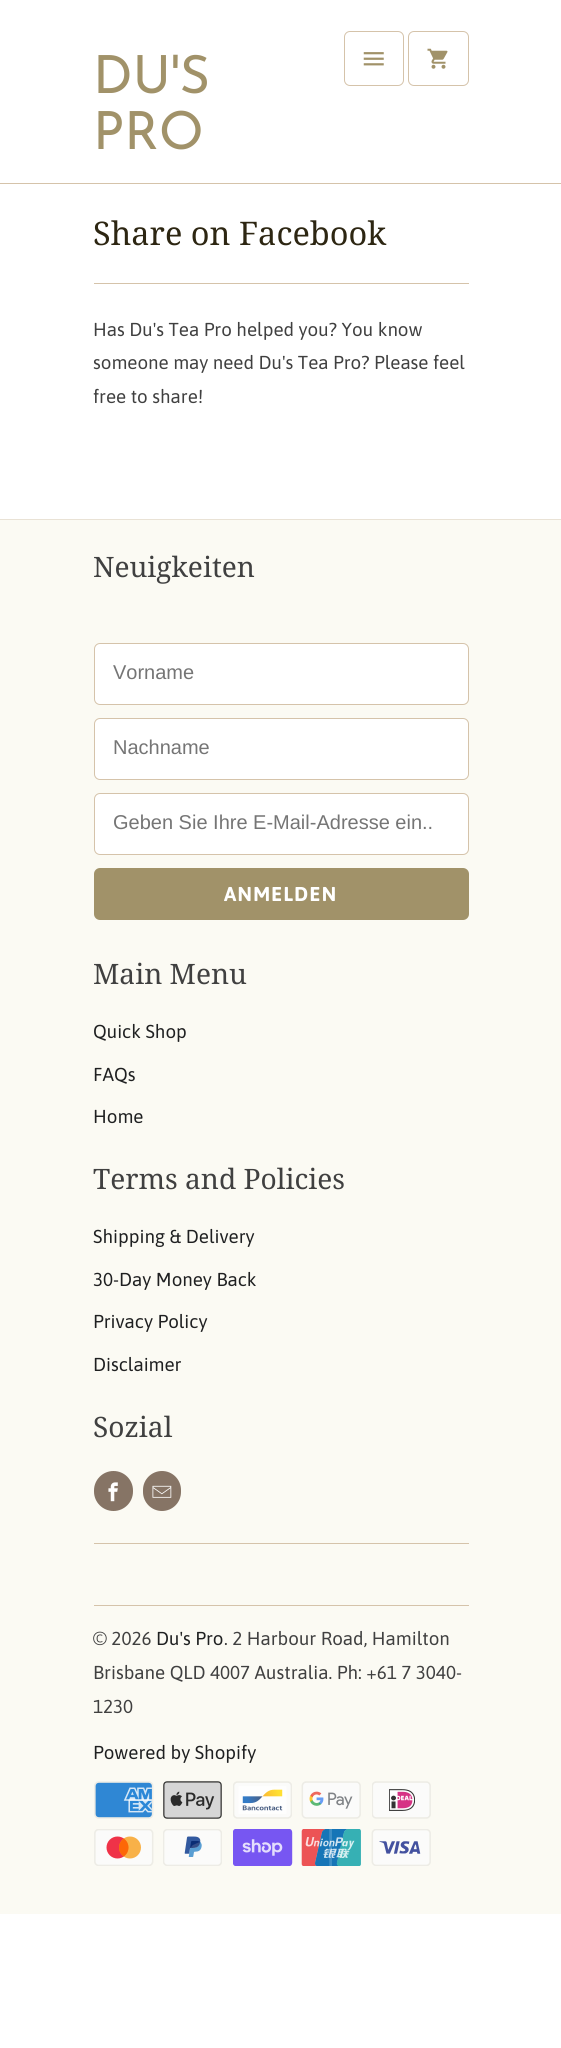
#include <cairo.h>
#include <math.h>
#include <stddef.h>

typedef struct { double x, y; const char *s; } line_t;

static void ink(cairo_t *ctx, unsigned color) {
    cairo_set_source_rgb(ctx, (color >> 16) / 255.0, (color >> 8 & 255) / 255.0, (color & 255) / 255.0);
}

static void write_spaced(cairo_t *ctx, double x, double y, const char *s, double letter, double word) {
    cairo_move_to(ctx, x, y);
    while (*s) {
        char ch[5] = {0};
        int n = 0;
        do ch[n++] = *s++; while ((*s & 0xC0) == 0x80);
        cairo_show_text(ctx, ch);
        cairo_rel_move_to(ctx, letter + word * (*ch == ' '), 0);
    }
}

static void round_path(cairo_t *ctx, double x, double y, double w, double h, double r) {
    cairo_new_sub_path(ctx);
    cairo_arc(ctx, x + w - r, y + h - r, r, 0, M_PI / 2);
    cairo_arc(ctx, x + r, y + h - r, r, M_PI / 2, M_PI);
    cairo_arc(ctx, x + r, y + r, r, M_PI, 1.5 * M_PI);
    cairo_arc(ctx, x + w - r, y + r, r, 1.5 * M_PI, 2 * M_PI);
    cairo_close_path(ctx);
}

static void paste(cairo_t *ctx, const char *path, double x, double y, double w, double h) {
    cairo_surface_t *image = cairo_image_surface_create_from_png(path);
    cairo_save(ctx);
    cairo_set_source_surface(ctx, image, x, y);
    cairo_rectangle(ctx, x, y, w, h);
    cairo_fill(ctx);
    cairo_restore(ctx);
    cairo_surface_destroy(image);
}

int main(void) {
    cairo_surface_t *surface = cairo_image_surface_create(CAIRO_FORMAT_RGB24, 561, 2048);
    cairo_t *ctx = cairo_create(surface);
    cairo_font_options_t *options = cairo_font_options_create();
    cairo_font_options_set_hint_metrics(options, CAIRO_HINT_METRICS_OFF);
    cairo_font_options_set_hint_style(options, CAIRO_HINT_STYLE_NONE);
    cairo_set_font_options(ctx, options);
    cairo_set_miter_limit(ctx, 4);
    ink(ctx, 0xFFFFFF);
    cairo_paint(ctx);
    ink(ctx, 0xD5C3AA);
    cairo_rectangle(ctx, 0, 183, 561, 1);
    cairo_fill(ctx);
    cairo_select_font_face(ctx, "Josefin Sans", CAIRO_FONT_SLANT_NORMAL, CAIRO_FONT_WEIGHT_NORMAL);
    cairo_set_font_size(ctx, 52.5);
    ink(ctx, 0xA19269);
    cairo_move_to(ctx, 93, 93);
    cairo_show_text(ctx, "DU'S");
    cairo_move_to(ctx, 93, 149);
    cairo_show_text(ctx, "PRO");
    round_path(ctx, 344.5, 31.5, 59, 54, 5.5);
    ink(ctx, 0xD5C3AA);
    cairo_set_line_width(ctx, 1);
    cairo_stroke(ctx);
    paste(ctx, "media/1.png", 363, 52, 21, 14);
    round_path(ctx, 408.5, 31.5, 60, 54, 5.5);
    cairo_stroke(ctx);
    paste(ctx, "media/2.png", 427, 48, 21, 21);
    cairo_rectangle(ctx, 94, 283, 375, 1);
    cairo_fill(ctx);
    cairo_select_font_face(ctx, "Noto Serif", CAIRO_FONT_SLANT_NORMAL, CAIRO_FONT_WEIGHT_NORMAL);
    cairo_set_font_size(ctx, 32.5);
    ink(ctx, 0x2D2612);
    cairo_move_to(ctx, 93, 245);
    cairo_show_text(ctx, "Share on Facebook");
    cairo_select_font_face(ctx, "Asap", CAIRO_FONT_SLANT_NORMAL, CAIRO_FONT_WEIGHT_NORMAL);
    cairo_set_font_size(ctx, 18.75);
    ink(ctx, 0x404040);
    {
        static const line_t items[] = {
            {93, 336, "Has Du's Tea Pro helped you? You know"},
            {93, 369, "someone may need Du's Tea Pro? Please feel"},
            {93, 403, "free to share!"},
        };
        for (size_t i = 0; i < sizeof items / sizeof *items; i++) {
            cairo_move_to(ctx, items[i].x, items[i].y);
            cairo_show_text(ctx, items[i].s);
        }
    }
    ink(ctx, 0xFBFAF3);
    cairo_rectangle(ctx, 0, 520, 561, 1394);
    cairo_fill(ctx);
    ink(ctx, 0xE9E2D5);
    cairo_rectangle(ctx, 0, 519, 561, 1);
    cairo_fill(ctx);
    cairo_select_font_face(ctx, "Noto Serif", CAIRO_FONT_SLANT_NORMAL, CAIRO_FONT_WEIGHT_NORMAL);
    cairo_set_font_size(ctx, 28.1);
    ink(ctx, 0x404040);
    cairo_move_to(ctx, 93, 577);
    cairo_show_text(ctx, "Neuigkeiten");
    ink(ctx, 0xFFFFFF);
    round_path(ctx, 94.5, 643.5, 374, 61, 5.5);
    cairo_fill_preserve(ctx);
    ink(ctx, 0xD5C3AA);
    cairo_stroke(ctx);
    cairo_select_font_face(ctx, "Liberation Sans", CAIRO_FONT_SLANT_NORMAL, CAIRO_FONT_WEIGHT_NORMAL);
    cairo_set_font_size(ctx, 20);
    ink(ctx, 0x757575);
    cairo_move_to(ctx, 113, 679);
    cairo_show_text(ctx, "Vorname");
    ink(ctx, 0xFFFFFF);
    round_path(ctx, 94.5, 718.5, 374, 61, 5.5);
    cairo_fill_preserve(ctx);
    ink(ctx, 0xD5C3AA);
    cairo_stroke(ctx);
    ink(ctx, 0x757575);
    cairo_move_to(ctx, 113, 754);
    cairo_show_text(ctx, "Nachname");
    ink(ctx, 0xFFFFFF);
    round_path(ctx, 94.5, 793.5, 374, 61, 5.5);
    cairo_fill_preserve(ctx);
    ink(ctx, 0xD5C3AA);
    cairo_stroke(ctx);
    ink(ctx, 0x757575);
    cairo_move_to(ctx, 113, 829);
    cairo_show_text(ctx, "Geben Sie Ihre E-Mail-Adresse ein..");
    ink(ctx, 0xA19269);
    round_path(ctx, 94, 868, 375, 52, 6);
    cairo_fill(ctx);
    cairo_select_font_face(ctx, "Asap", CAIRO_FONT_SLANT_NORMAL, CAIRO_FONT_WEIGHT_BOLD);
    ink(ctx, 0xFFFFFF);
    write_spaced(ctx, 224, 901, "ANMELDEN", 1.25, 0);
    cairo_select_font_face(ctx, "Noto Serif", CAIRO_FONT_SLANT_NORMAL, CAIRO_FONT_WEIGHT_NORMAL);
    cairo_set_font_size(ctx, 28.1);
    ink(ctx, 0x404040);
    cairo_move_to(ctx, 93, 984);
    cairo_show_text(ctx, "Main Menu");
    cairo_select_font_face(ctx, "Asap", CAIRO_FONT_SLANT_NORMAL, CAIRO_FONT_WEIGHT_NORMAL);
    cairo_set_font_size(ctx, 18.75);
    ink(ctx, 0x1F2021);
    {
        static const line_t items[] = {
            {93, 1038, "Quick Shop"},
            {93, 1081, "FAQs"},
            {93, 1123, "Home"},
        };
        for (size_t i = 0; i < sizeof items / sizeof *items; i++) {
            cairo_move_to(ctx, items[i].x, items[i].y);
            cairo_show_text(ctx, items[i].s);
        }
    }
    cairo_select_font_face(ctx, "Noto Serif", CAIRO_FONT_SLANT_NORMAL, CAIRO_FONT_WEIGHT_NORMAL);
    cairo_set_font_size(ctx, 28.1);
    ink(ctx, 0x404040);
    cairo_move_to(ctx, 93, 1189);
    cairo_show_text(ctx, "Terms and Policies");
    cairo_select_font_face(ctx, "Asap", CAIRO_FONT_SLANT_NORMAL, CAIRO_FONT_WEIGHT_NORMAL);
    cairo_set_font_size(ctx, 18.75);
    ink(ctx, 0x1F2021);
    {
        static const line_t items[] = {
            {93, 1243, "Shipping & Delivery"},
            {93, 1286, "30-Day Money Back"},
            {93, 1328, "Privacy Policy"},
            {93, 1371, "Disclaimer"},
        };
        for (size_t i = 0; i < sizeof items / sizeof *items; i++) {
            cairo_move_to(ctx, items[i].x, items[i].y);
            cairo_show_text(ctx, items[i].s);
        }
    }
    cairo_select_font_face(ctx, "Noto Serif", CAIRO_FONT_SLANT_NORMAL, CAIRO_FONT_WEIGHT_NORMAL);
    cairo_set_font_size(ctx, 28.1);
    ink(ctx, 0x404040);
    cairo_move_to(ctx, 93, 1437);
    cairo_show_text(ctx, "Sozial");
    ink(ctx, 0x867465);
    round_path(ctx, 94, 1471, 39, 40, 19.5);
    cairo_fill(ctx);
    paste(ctx, "media/3.png", 108, 1482, 10, 20);
    round_path(ctx, 143, 1471, 38, 40, 19);
    cairo_fill(ctx);
    paste(ctx, "media/4.png", 152, 1485, 20, 13);
    ink(ctx, 0xD5C3AA);
    cairo_rectangle(ctx, 94, 1543, 375, 1);
    cairo_fill(ctx);
    cairo_rectangle(ctx, 94, 1605, 375, 1);
    cairo_fill(ctx);
    cairo_select_font_face(ctx, "Asap", CAIRO_FONT_SLANT_NORMAL, CAIRO_FONT_WEIGHT_NORMAL);
    cairo_set_font_size(ctx, 18.75);
    ink(ctx, 0x404040);
    cairo_move_to(ctx, 93, 1645);
    cairo_show_text(ctx, "© 2026");
    ink(ctx, 0x1F2021);
    cairo_move_to(ctx, 156, 1645);
    cairo_show_text(ctx, "Du's Pro");
    ink(ctx, 0x404040);
    {
        static const line_t items[] = {
            {224, 1645, ". 2 Harbour Road, Hamilton"},
            {93, 1679, "Brisbane QLD 4007 Australia. Ph: +61 7 3040-"},
            {93, 1713, "1230"},
        };
        for (size_t i = 0; i < sizeof items / sizeof *items; i++) {
            cairo_move_to(ctx, items[i].x, items[i].y);
            cairo_show_text(ctx, items[i].s);
        }
    }
    ink(ctx, 0x1F2021);
    cairo_move_to(ctx, 93, 1759);
    cairo_show_text(ctx, "Powered by Shopify");
    paste(ctx, "media/5.png", 94, 1781, 60, 38);
    paste(ctx, "media/6.png", 163, 1781, 59, 38);
    paste(ctx, "media/7.png", 233, 1781, 59, 38);
    paste(ctx, "media/8.png", 301, 1781, 60, 38);
    paste(ctx, "media/9.png", 372, 1781, 59, 38);
    paste(ctx, "media/10.png", 94, 1829, 60, 37);
    paste(ctx, "media/11.png", 163, 1829, 59, 37);
    paste(ctx, "media/12.png", 233, 1829, 60, 37);
    paste(ctx, "media/13.png", 301, 1829, 60, 37);
    paste(ctx, "media/14.png", 371, 1829, 60, 37);
    cairo_surface_write_to_png(surface, "image.png");
    cairo_font_options_destroy(options);
    cairo_destroy(ctx);
    cairo_surface_destroy(surface);
    return 0;
}
